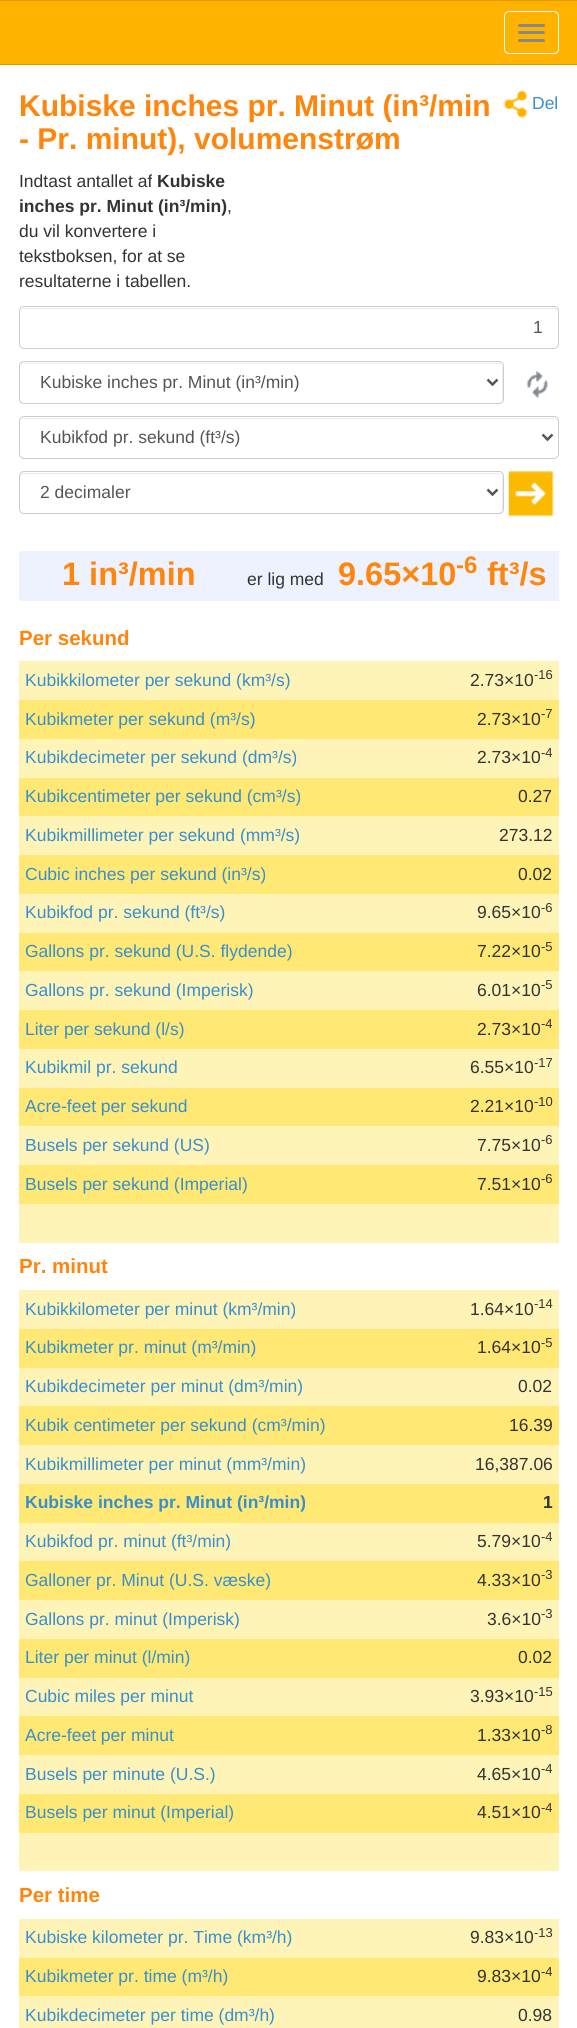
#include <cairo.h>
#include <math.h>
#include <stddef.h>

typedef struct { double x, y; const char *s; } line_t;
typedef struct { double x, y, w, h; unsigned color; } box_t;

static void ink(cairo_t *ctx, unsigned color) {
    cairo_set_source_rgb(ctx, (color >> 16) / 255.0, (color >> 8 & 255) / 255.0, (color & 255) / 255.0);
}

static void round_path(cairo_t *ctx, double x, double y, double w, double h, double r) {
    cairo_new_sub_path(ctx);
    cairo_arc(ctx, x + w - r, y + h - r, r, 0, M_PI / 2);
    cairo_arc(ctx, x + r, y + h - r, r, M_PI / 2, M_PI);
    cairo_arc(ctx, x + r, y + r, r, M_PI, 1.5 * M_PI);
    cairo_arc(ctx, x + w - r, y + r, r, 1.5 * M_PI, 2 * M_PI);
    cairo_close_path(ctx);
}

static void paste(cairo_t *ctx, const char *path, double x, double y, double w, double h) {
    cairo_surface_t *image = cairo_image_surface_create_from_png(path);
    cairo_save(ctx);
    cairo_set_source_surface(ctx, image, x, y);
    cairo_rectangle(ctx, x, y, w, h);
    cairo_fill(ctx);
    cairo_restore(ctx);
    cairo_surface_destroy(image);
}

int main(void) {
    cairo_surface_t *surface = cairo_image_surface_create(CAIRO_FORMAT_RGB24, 577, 2028);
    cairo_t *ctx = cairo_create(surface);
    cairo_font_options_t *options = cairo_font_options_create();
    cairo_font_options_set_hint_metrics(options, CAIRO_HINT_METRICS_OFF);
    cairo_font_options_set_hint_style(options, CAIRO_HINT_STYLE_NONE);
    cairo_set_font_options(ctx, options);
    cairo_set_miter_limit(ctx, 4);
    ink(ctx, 0xFFFFFF);
    cairo_paint(ctx);
    {
        static const box_t items[] = {
            {0, 1, 577, 63, 0xFFB300},
            {0, 0, 577, 1, 0xDE9C00},
            {0, 64, 577, 1, 0xDE9C00},
        };
        for (size_t i = 0; i < sizeof items / sizeof *items; i++) {
            ink(ctx, items[i].color);
            cairo_rectangle(ctx, items[i].x, items[i].y, items[i].w, items[i].h);
            cairo_fill(ctx);
        }
    }
    round_path(ctx, 504.5, 11.5, 54, 42, 4.5);
    ink(ctx, 0xFFFFFF);
    cairo_set_line_width(ctx, 1);
    cairo_stroke(ctx);
    ink(ctx, 0x888888);
    round_path(ctx, 518, 24, 27, 3, 1.5);
    cairo_fill(ctx);
    round_path(ctx, 518, 31, 27, 3, 1.5);
    cairo_fill(ctx);
    round_path(ctx, 518, 39, 27, 3, 1.5);
    cairo_fill(ctx);
    cairo_select_font_face(ctx, "Liberation Sans", CAIRO_FONT_SLANT_NORMAL, CAIRO_FONT_WEIGHT_BOLD);
    cairo_set_font_size(ctx, 30);
    ink(ctx, 0xFF850D);
    cairo_move_to(ctx, 19, 116);
    cairo_show_text(ctx, "Kubiske inches pr. Minut (in³/min");
    cairo_move_to(ctx, 19, 149);
    cairo_show_text(ctx, "- Pr. minut), volumenstrøm");
    paste(ctx, "media/1.png", 503, 91, 25, 27);
    cairo_select_font_face(ctx, "Liberation Sans", CAIRO_FONT_SLANT_NORMAL, CAIRO_FONT_WEIGHT_NORMAL);
    cairo_set_font_size(ctx, 17.5);
    ink(ctx, 0x368FD1);
    cairo_move_to(ctx, 532, 109);
    cairo_show_text(ctx, "Del");
    ink(ctx, 0x333333);
    cairo_move_to(ctx, 19, 187);
    cairo_show_text(ctx, "Indtast antallet af");
    cairo_select_font_face(ctx, "Liberation Sans", CAIRO_FONT_SLANT_NORMAL, CAIRO_FONT_WEIGHT_BOLD);
    cairo_move_to(ctx, 157, 187);
    cairo_show_text(ctx, "Kubiske");
    cairo_move_to(ctx, 19, 212);
    cairo_show_text(ctx, "inches pr. Minut (in³/min)");
    cairo_select_font_face(ctx, "Liberation Sans", CAIRO_FONT_SLANT_NORMAL, CAIRO_FONT_WEIGHT_NORMAL);
    {
        static const line_t items[] = {
            {227, 212, ","},
            {19, 237, "du vil konvertere i"},
            {19, 262, "tekstboksen, for at se"},
            {19, 287, "resultaterne i tabellen."},
        };
        for (size_t i = 0; i < sizeof items / sizeof *items; i++) {
            cairo_move_to(ctx, items[i].x, items[i].y);
            cairo_show_text(ctx, items[i].s);
        }
    }
    ink(ctx, 0xECECEC);
    cairo_new_path(ctx);
    cairo_move_to(ctx, 24, 309);
    cairo_line_to(ctx, 554, 309);
    cairo_curve_to(ctx, 556, 309, 558, 310, 558, 312);
    cairo_curve_to(ctx, 558, 310, 556, 308, 554, 308);
    cairo_line_to(ctx, 24, 308);
    cairo_curve_to(ctx, 22, 308, 20, 310, 20, 312);
    cairo_curve_to(ctx, 20, 310, 22, 309, 24, 309);
    cairo_close_path(ctx);
    cairo_fill(ctx);
    round_path(ctx, 19.5, 306.5, 539, 42, 4.5);
    ink(ctx, 0xCCCCCC);
    cairo_stroke(ctx);
    ink(ctx, 0x555555);
    cairo_move_to(ctx, 533, 333);
    cairo_show_text(ctx, "1");
    ink(ctx, 0xECECEC);
    cairo_new_path(ctx);
    cairo_move_to(ctx, 24, 364);
    cairo_line_to(ctx, 499, 364);
    cairo_curve_to(ctx, 501, 364, 502, 365, 502, 368);
    cairo_line_to(ctx, 502, 402);
    cairo_line_to(ctx, 503, 400);
    cairo_curve_to(ctx, 504, 397, 503, 366, 502, 365);
    cairo_line_to(ctx, 500, 363);
    cairo_line_to(ctx, 22, 363);
    cairo_curve_to(ctx, 20, 364, 20, 366, 20, 368);
    cairo_curve_to(ctx, 20, 365, 22, 364, 24, 364);
    cairo_close_path(ctx);
    cairo_fill(ctx);
    round_path(ctx, 19.5, 361.5, 484, 42, 4.5);
    ink(ctx, 0xCCCCCC);
    cairo_stroke(ctx);
    cairo_new_path(ctx);
    cairo_move_to(ctx, 487.5, 379.5);
    cairo_line_to(ctx, 492.5, 384.5);
    cairo_line_to(ctx, 497.5, 379.5);
    ink(ctx, 0x555555);
    cairo_set_line_width(ctx, 2.5);
    cairo_stroke(ctx);
    cairo_move_to(ctx, 40, 388);
    cairo_show_text(ctx, "Kubiske inches pr. Minut (in³/min)");
    paste(ctx, "media/2.png", 527, 371, 21, 27);
    ink(ctx, 0xECECEC);
    cairo_new_path(ctx);
    cairo_move_to(ctx, 24, 419);
    cairo_line_to(ctx, 554, 419);
    cairo_curve_to(ctx, 556, 419, 558, 420, 558, 422);
    cairo_curve_to(ctx, 558, 420, 556, 418, 554, 418);
    cairo_line_to(ctx, 24, 418);
    cairo_curve_to(ctx, 22, 418, 20, 420, 20, 422);
    cairo_curve_to(ctx, 20, 420, 22, 419, 24, 419);
    cairo_close_path(ctx);
    cairo_fill(ctx);
    round_path(ctx, 19.5, 416.5, 539, 42, 4.5);
    ink(ctx, 0xCCCCCC);
    cairo_set_line_width(ctx, 1);
    cairo_stroke(ctx);
    cairo_new_path(ctx);
    cairo_move_to(ctx, 542.5, 434.5);
    cairo_line_to(ctx, 547.5, 439.5);
    cairo_line_to(ctx, 552.5, 434.5);
    ink(ctx, 0x555555);
    cairo_set_line_width(ctx, 2.5);
    cairo_stroke(ctx);
    cairo_move_to(ctx, 40, 443);
    cairo_show_text(ctx, "Kubikfod pr. sekund (ft³/s)");
    ink(ctx, 0xECECEC);
    cairo_new_path(ctx);
    cairo_move_to(ctx, 24, 474);
    cairo_line_to(ctx, 499, 474);
    cairo_curve_to(ctx, 501, 474, 502, 475, 502, 478);
    cairo_line_to(ctx, 502, 512);
    cairo_line_to(ctx, 503, 510);
    cairo_curve_to(ctx, 504, 507, 503, 476, 502, 475);
    cairo_line_to(ctx, 500, 473);
    cairo_line_to(ctx, 22, 473);
    cairo_curve_to(ctx, 20, 474, 20, 476, 20, 478);
    cairo_curve_to(ctx, 20, 475, 22, 474, 24, 474);
    cairo_close_path(ctx);
    cairo_fill(ctx);
    round_path(ctx, 19.5, 471.5, 484, 42, 4.5);
    ink(ctx, 0xCCCCCC);
    cairo_set_line_width(ctx, 1);
    cairo_stroke(ctx);
    cairo_new_path(ctx);
    cairo_move_to(ctx, 487.5, 489.5);
    cairo_line_to(ctx, 492.5, 494.5);
    cairo_line_to(ctx, 497.5, 489.5);
    ink(ctx, 0x555555);
    cairo_set_line_width(ctx, 2.5);
    cairo_stroke(ctx);
    cairo_move_to(ctx, 40, 498);
    cairo_show_text(ctx, "2 decimaler");
    paste(ctx, "media/3.png", 508, 471, 46, 46);
    ink(ctx, 0xEEF2FF);
    cairo_rectangle(ctx, 19, 551, 540, 50);
    cairo_fill(ctx);
    cairo_select_font_face(ctx, "Liberation Sans", CAIRO_FONT_SLANT_NORMAL, CAIRO_FONT_WEIGHT_BOLD);
    cairo_set_font_size(ctx, 32.5);
    ink(ctx, 0xFF850D);
    cairo_move_to(ctx, 62, 585);
    cairo_show_text(ctx, "1 in³/min");
    cairo_select_font_face(ctx, "Liberation Sans", CAIRO_FONT_SLANT_NORMAL, CAIRO_FONT_WEIGHT_NORMAL);
    cairo_set_font_size(ctx, 17.5);
    ink(ctx, 0x333333);
    cairo_move_to(ctx, 247, 585);
    cairo_show_text(ctx, "er lig med");
    cairo_select_font_face(ctx, "Liberation Sans", CAIRO_FONT_SLANT_NORMAL, CAIRO_FONT_WEIGHT_BOLD);
    cairo_set_font_size(ctx, 32.5);
    ink(ctx, 0xFF850D);
    cairo_move_to(ctx, 338, 585);
    cairo_show_text(ctx, "9.65×10");
    cairo_set_font_size(ctx, 24);
    cairo_move_to(ctx, 456, 573);
    cairo_show_text(ctx, "-6");
    cairo_set_font_size(ctx, 32.5);
    cairo_move_to(ctx, 487, 585);
    cairo_show_text(ctx, "ft³/s");
    cairo_set_font_size(ctx, 20.5);
    cairo_move_to(ctx, 19, 645);
    cairo_show_text(ctx, "Per sekund");
    ink(ctx, 0xFFF4B8);
    cairo_rectangle(ctx, 19, 661, 540, 39);
    cairo_fill(ctx);
    cairo_select_font_face(ctx, "Liberation Sans", CAIRO_FONT_SLANT_NORMAL, CAIRO_FONT_WEIGHT_NORMAL);
    cairo_set_font_size(ctx, 17.5);
    ink(ctx, 0x368FD1);
    cairo_move_to(ctx, 25, 686);
    cairo_show_text(ctx, "Kubikkilometer per sekund (km³/s)");
    ink(ctx, 0x333333);
    cairo_move_to(ctx, 470, 686);
    cairo_show_text(ctx, "2.73×10");
    cairo_set_font_size(ctx, 13);
    cairo_move_to(ctx, 534, 679);
    cairo_show_text(ctx, "-16");
    ink(ctx, 0xFFE873);
    cairo_rectangle(ctx, 19, 700, 540, 39);
    cairo_fill(ctx);
    cairo_set_font_size(ctx, 17.5);
    ink(ctx, 0x368FD1);
    cairo_move_to(ctx, 25, 725);
    cairo_show_text(ctx, "Kubikmeter per sekund (m³/s)");
    ink(ctx, 0x333333);
    cairo_move_to(ctx, 477, 725);
    cairo_show_text(ctx, "2.73×10");
    cairo_set_font_size(ctx, 13);
    cairo_move_to(ctx, 541, 718);
    cairo_show_text(ctx, "-7");
    ink(ctx, 0xFFF4B8);
    cairo_rectangle(ctx, 19, 739, 540, 39);
    cairo_fill(ctx);
    cairo_set_font_size(ctx, 17.5);
    ink(ctx, 0x368FD1);
    cairo_move_to(ctx, 25, 763);
    cairo_show_text(ctx, "Kubikdecimeter per sekund (dm³/s)");
    ink(ctx, 0x333333);
    cairo_move_to(ctx, 477, 763);
    cairo_show_text(ctx, "2.73×10");
    cairo_set_font_size(ctx, 13);
    cairo_move_to(ctx, 541, 757);
    cairo_show_text(ctx, "-4");
    ink(ctx, 0xFFE873);
    cairo_rectangle(ctx, 19, 778, 540, 38);
    cairo_fill(ctx);
    cairo_set_font_size(ctx, 17.5);
    ink(ctx, 0x368FD1);
    cairo_move_to(ctx, 25, 802);
    cairo_show_text(ctx, "Kubikcentimeter per sekund (cm³/s)");
    ink(ctx, 0x333333);
    cairo_move_to(ctx, 518, 802);
    cairo_show_text(ctx, "0.27");
    ink(ctx, 0xFFF4B8);
    cairo_rectangle(ctx, 19, 816, 540, 39);
    cairo_fill(ctx);
    ink(ctx, 0x368FD1);
    cairo_move_to(ctx, 25, 841);
    cairo_show_text(ctx, "Kubikmillimeter per sekund (mm³/s)");
    ink(ctx, 0x333333);
    cairo_move_to(ctx, 499, 841);
    cairo_show_text(ctx, "273.12");
    ink(ctx, 0xFFE873);
    cairo_rectangle(ctx, 19, 855, 540, 39);
    cairo_fill(ctx);
    ink(ctx, 0x368FD1);
    cairo_move_to(ctx, 25, 880);
    cairo_show_text(ctx, "Cubic inches per sekund (in³/s)");
    ink(ctx, 0x333333);
    cairo_move_to(ctx, 518, 880);
    cairo_show_text(ctx, "0.02");
    ink(ctx, 0xFFF4B8);
    cairo_rectangle(ctx, 19, 894, 540, 39);
    cairo_fill(ctx);
    ink(ctx, 0x368FD1);
    cairo_move_to(ctx, 25, 918);
    cairo_show_text(ctx, "Kubikfod pr. sekund (ft³/s)");
    ink(ctx, 0x333333);
    cairo_move_to(ctx, 477, 918);
    cairo_show_text(ctx, "9.65×10");
    cairo_set_font_size(ctx, 13);
    cairo_move_to(ctx, 541, 912);
    cairo_show_text(ctx, "-6");
    ink(ctx, 0xFFE873);
    cairo_rectangle(ctx, 19, 933, 540, 38);
    cairo_fill(ctx);
    cairo_set_font_size(ctx, 17.5);
    ink(ctx, 0x368FD1);
    cairo_move_to(ctx, 25, 957);
    cairo_show_text(ctx, "Gallons pr. sekund (U.S. flydende)");
    ink(ctx, 0x333333);
    cairo_move_to(ctx, 477, 957);
    cairo_show_text(ctx, "7.22×10");
    cairo_set_font_size(ctx, 13);
    cairo_move_to(ctx, 541, 951);
    cairo_show_text(ctx, "-5");
    ink(ctx, 0xFFF4B8);
    cairo_rectangle(ctx, 19, 971, 540, 39);
    cairo_fill(ctx);
    cairo_set_font_size(ctx, 17.5);
    ink(ctx, 0x368FD1);
    cairo_move_to(ctx, 25, 996);
    cairo_show_text(ctx, "Gallons pr. sekund (Imperisk)");
    ink(ctx, 0x333333);
    cairo_move_to(ctx, 477, 996);
    cairo_show_text(ctx, "6.01×10");
    cairo_set_font_size(ctx, 13);
    cairo_move_to(ctx, 541, 989);
    cairo_show_text(ctx, "-5");
    ink(ctx, 0xFFE873);
    cairo_rectangle(ctx, 19, 1010, 540, 39);
    cairo_fill(ctx);
    cairo_set_font_size(ctx, 17.5);
    ink(ctx, 0x368FD1);
    cairo_move_to(ctx, 25, 1035);
    cairo_show_text(ctx, "Liter per sekund (l/s)");
    ink(ctx, 0x333333);
    cairo_move_to(ctx, 477, 1035);
    cairo_show_text(ctx, "2.73×10");
    cairo_set_font_size(ctx, 13);
    cairo_move_to(ctx, 541, 1028);
    cairo_show_text(ctx, "-4");
    ink(ctx, 0xFFF4B8);
    cairo_rectangle(ctx, 19, 1049, 540, 39);
    cairo_fill(ctx);
    cairo_set_font_size(ctx, 17.5);
    ink(ctx, 0x368FD1);
    cairo_move_to(ctx, 25, 1073);
    cairo_show_text(ctx, "Kubikmil pr. sekund");
    ink(ctx, 0x333333);
    cairo_move_to(ctx, 470, 1073);
    cairo_show_text(ctx, "6.55×10");
    cairo_set_font_size(ctx, 13);
    cairo_move_to(ctx, 534, 1067);
    cairo_show_text(ctx, "-17");
    ink(ctx, 0xFFE873);
    cairo_rectangle(ctx, 19, 1088, 540, 38);
    cairo_fill(ctx);
    cairo_set_font_size(ctx, 17.5);
    ink(ctx, 0x368FD1);
    cairo_move_to(ctx, 25, 1112);
    cairo_show_text(ctx, "Acre-feet per sekund");
    ink(ctx, 0x333333);
    cairo_move_to(ctx, 470, 1112);
    cairo_show_text(ctx, "2.21×10");
    cairo_set_font_size(ctx, 13);
    cairo_move_to(ctx, 534, 1106);
    cairo_show_text(ctx, "-10");
    ink(ctx, 0xFFF4B8);
    cairo_rectangle(ctx, 19, 1126, 540, 39);
    cairo_fill(ctx);
    cairo_set_font_size(ctx, 17.5);
    ink(ctx, 0x368FD1);
    cairo_move_to(ctx, 25, 1151);
    cairo_show_text(ctx, "Busels per sekund (US)");
    ink(ctx, 0x333333);
    cairo_move_to(ctx, 477, 1151);
    cairo_show_text(ctx, "7.75×10");
    cairo_set_font_size(ctx, 13);
    cairo_move_to(ctx, 541, 1144);
    cairo_show_text(ctx, "-6");
    ink(ctx, 0xFFE873);
    cairo_rectangle(ctx, 19, 1165, 540, 39);
    cairo_fill(ctx);
    cairo_set_font_size(ctx, 17.5);
    ink(ctx, 0x368FD1);
    cairo_move_to(ctx, 25, 1190);
    cairo_show_text(ctx, "Busels per sekund (Imperial)");
    ink(ctx, 0x333333);
    cairo_move_to(ctx, 477, 1190);
    cairo_show_text(ctx, "7.51×10");
    cairo_set_font_size(ctx, 13);
    cairo_move_to(ctx, 541, 1183);
    cairo_show_text(ctx, "-6");
    ink(ctx, 0xFFF4B8);
    cairo_rectangle(ctx, 19, 1204, 540, 39);
    cairo_fill(ctx);
    cairo_select_font_face(ctx, "Liberation Sans", CAIRO_FONT_SLANT_NORMAL, CAIRO_FONT_WEIGHT_BOLD);
    cairo_set_font_size(ctx, 20.5);
    ink(ctx, 0xFF850D);
    cairo_move_to(ctx, 19, 1273);
    cairo_show_text(ctx, "Pr. minut");
    ink(ctx, 0xFFF4B8);
    cairo_rectangle(ctx, 19, 1290, 540, 39);
    cairo_fill(ctx);
    cairo_select_font_face(ctx, "Liberation Sans", CAIRO_FONT_SLANT_NORMAL, CAIRO_FONT_WEIGHT_NORMAL);
    cairo_set_font_size(ctx, 17.5);
    ink(ctx, 0x368FD1);
    cairo_move_to(ctx, 25, 1315);
    cairo_show_text(ctx, "Kubikkilometer per minut (km³/min)");
    ink(ctx, 0x333333);
    cairo_move_to(ctx, 470, 1315);
    cairo_show_text(ctx, "1.64×10");
    cairo_set_font_size(ctx, 13);
    cairo_move_to(ctx, 534, 1308);
    cairo_show_text(ctx, "-14");
    ink(ctx, 0xFFE873);
    cairo_rectangle(ctx, 19, 1329, 540, 39);
    cairo_fill(ctx);
    cairo_set_font_size(ctx, 17.5);
    ink(ctx, 0x368FD1);
    cairo_move_to(ctx, 25, 1353);
    cairo_show_text(ctx, "Kubikmeter pr. minut (m³/min)");
    ink(ctx, 0x333333);
    cairo_move_to(ctx, 477, 1353);
    cairo_show_text(ctx, "1.64×10");
    cairo_set_font_size(ctx, 13);
    cairo_move_to(ctx, 541, 1347);
    cairo_show_text(ctx, "-5");
    ink(ctx, 0xFFF4B8);
    cairo_rectangle(ctx, 19, 1368, 540, 38);
    cairo_fill(ctx);
    cairo_set_font_size(ctx, 17.5);
    ink(ctx, 0x368FD1);
    cairo_move_to(ctx, 25, 1392);
    cairo_show_text(ctx, "Kubikdecimeter per minut (dm³/min)");
    ink(ctx, 0x333333);
    cairo_move_to(ctx, 518, 1392);
    cairo_show_text(ctx, "0.02");
    ink(ctx, 0xFFE873);
    cairo_rectangle(ctx, 19, 1406, 540, 39);
    cairo_fill(ctx);
    ink(ctx, 0x368FD1);
    cairo_move_to(ctx, 25, 1431);
    cairo_show_text(ctx, "Kubik centimeter per sekund (cm³/min)");
    ink(ctx, 0x333333);
    cairo_move_to(ctx, 509, 1431);
    cairo_show_text(ctx, "16.39");
    ink(ctx, 0xFFF4B8);
    cairo_rectangle(ctx, 19, 1445, 540, 39);
    cairo_fill(ctx);
    ink(ctx, 0x368FD1);
    cairo_move_to(ctx, 25, 1470);
    cairo_show_text(ctx, "Kubikmillimeter per minut (mm³/min)");
    ink(ctx, 0x333333);
    cairo_move_to(ctx, 475, 1470);
    cairo_show_text(ctx, "16,387.06");
    ink(ctx, 0xFFE873);
    cairo_rectangle(ctx, 19, 1484, 540, 39);
    cairo_fill(ctx);
    cairo_select_font_face(ctx, "Liberation Sans", CAIRO_FONT_SLANT_NORMAL, CAIRO_FONT_WEIGHT_BOLD);
    ink(ctx, 0x368FD1);
    cairo_move_to(ctx, 25, 1508);
    cairo_show_text(ctx, "Kubiske inches pr. Minut (in³/min)");
    ink(ctx, 0x333333);
    cairo_move_to(ctx, 543, 1508);
    cairo_show_text(ctx, "1");
    ink(ctx, 0xFFF4B8);
    cairo_rectangle(ctx, 19, 1523, 540, 38);
    cairo_fill(ctx);
    cairo_select_font_face(ctx, "Liberation Sans", CAIRO_FONT_SLANT_NORMAL, CAIRO_FONT_WEIGHT_NORMAL);
    ink(ctx, 0x368FD1);
    cairo_move_to(ctx, 25, 1547);
    cairo_show_text(ctx, "Kubikfod pr. minut (ft³/min)");
    ink(ctx, 0x333333);
    cairo_move_to(ctx, 477, 1547);
    cairo_show_text(ctx, "5.79×10");
    cairo_set_font_size(ctx, 13);
    cairo_move_to(ctx, 541, 1541);
    cairo_show_text(ctx, "-4");
    ink(ctx, 0xFFE873);
    cairo_rectangle(ctx, 19, 1561, 540, 39);
    cairo_fill(ctx);
    cairo_set_font_size(ctx, 17.5);
    ink(ctx, 0x368FD1);
    cairo_move_to(ctx, 25, 1586);
    cairo_show_text(ctx, "Galloner pr. Minut (U.S. væske)");
    ink(ctx, 0x333333);
    cairo_move_to(ctx, 477, 1586);
    cairo_show_text(ctx, "4.33×10");
    cairo_set_font_size(ctx, 13);
    cairo_move_to(ctx, 541, 1579);
    cairo_show_text(ctx, "-3");
    ink(ctx, 0xFFF4B8);
    cairo_rectangle(ctx, 19, 1600, 540, 39);
    cairo_fill(ctx);
    cairo_set_font_size(ctx, 17.5);
    ink(ctx, 0x368FD1);
    cairo_move_to(ctx, 25, 1625);
    cairo_show_text(ctx, "Gallons pr. minut (Imperisk)");
    ink(ctx, 0x333333);
    cairo_move_to(ctx, 487, 1625);
    cairo_show_text(ctx, "3.6×10");
    cairo_set_font_size(ctx, 13);
    cairo_move_to(ctx, 541, 1618);
    cairo_show_text(ctx, "-3");
    ink(ctx, 0xFFE873);
    cairo_rectangle(ctx, 19, 1639, 540, 39);
    cairo_fill(ctx);
    cairo_set_font_size(ctx, 17.5);
    ink(ctx, 0x368FD1);
    cairo_move_to(ctx, 25, 1663);
    cairo_show_text(ctx, "Liter per minut (l/min)");
    ink(ctx, 0x333333);
    cairo_move_to(ctx, 518, 1663);
    cairo_show_text(ctx, "0.02");
    ink(ctx, 0xFFF4B8);
    cairo_rectangle(ctx, 19, 1678, 540, 38);
    cairo_fill(ctx);
    ink(ctx, 0x368FD1);
    cairo_move_to(ctx, 25, 1702);
    cairo_show_text(ctx, "Cubic miles per minut");
    ink(ctx, 0x333333);
    cairo_move_to(ctx, 470, 1702);
    cairo_show_text(ctx, "3.93×10");
    cairo_set_font_size(ctx, 13);
    cairo_move_to(ctx, 534, 1696);
    cairo_show_text(ctx, "-15");
    ink(ctx, 0xFFE873);
    cairo_rectangle(ctx, 19, 1716, 540, 39);
    cairo_fill(ctx);
    cairo_set_font_size(ctx, 17.5);
    ink(ctx, 0x368FD1);
    cairo_move_to(ctx, 25, 1741);
    cairo_show_text(ctx, "Acre-feet per minut");
    ink(ctx, 0x333333);
    cairo_move_to(ctx, 477, 1741);
    cairo_show_text(ctx, "1.33×10");
    cairo_set_font_size(ctx, 13);
    cairo_move_to(ctx, 541, 1734);
    cairo_show_text(ctx, "-8");
    ink(ctx, 0xFFF4B8);
    cairo_rectangle(ctx, 19, 1755, 540, 39);
    cairo_fill(ctx);
    cairo_set_font_size(ctx, 17.5);
    ink(ctx, 0x368FD1);
    cairo_move_to(ctx, 25, 1780);
    cairo_show_text(ctx, "Busels per minute (U.S.)");
    ink(ctx, 0x333333);
    cairo_move_to(ctx, 477, 1780);
    cairo_show_text(ctx, "4.65×10");
    cairo_set_font_size(ctx, 13);
    cairo_move_to(ctx, 541, 1773);
    cairo_show_text(ctx, "-4");
    ink(ctx, 0xFFE873);
    cairo_rectangle(ctx, 19, 1794, 540, 39);
    cairo_fill(ctx);
    cairo_set_font_size(ctx, 17.5);
    ink(ctx, 0x368FD1);
    cairo_move_to(ctx, 25, 1818);
    cairo_show_text(ctx, "Busels per minut (Imperial)");
    ink(ctx, 0x333333);
    cairo_move_to(ctx, 477, 1818);
    cairo_show_text(ctx, "4.51×10");
    cairo_set_font_size(ctx, 13);
    cairo_move_to(ctx, 541, 1812);
    cairo_show_text(ctx, "-4");
    ink(ctx, 0xFFF4B8);
    cairo_rectangle(ctx, 19, 1833, 540, 38);
    cairo_fill(ctx);
    cairo_select_font_face(ctx, "Liberation Sans", CAIRO_FONT_SLANT_NORMAL, CAIRO_FONT_WEIGHT_BOLD);
    cairo_set_font_size(ctx, 20.5);
    ink(ctx, 0xFF850D);
    cairo_move_to(ctx, 19, 1902);
    cairo_show_text(ctx, "Per time");
    ink(ctx, 0xFFF4B8);
    cairo_rectangle(ctx, 19, 1919, 540, 39);
    cairo_fill(ctx);
    cairo_select_font_face(ctx, "Liberation Sans", CAIRO_FONT_SLANT_NORMAL, CAIRO_FONT_WEIGHT_NORMAL);
    cairo_set_font_size(ctx, 17.5);
    ink(ctx, 0x368FD1);
    cairo_move_to(ctx, 25, 1943);
    cairo_show_text(ctx, "Kubiske kilometer pr. Time (km³/h)");
    ink(ctx, 0x333333);
    cairo_move_to(ctx, 470, 1943);
    cairo_show_text(ctx, "9.83×10");
    cairo_set_font_size(ctx, 13);
    cairo_move_to(ctx, 534, 1937);
    cairo_show_text(ctx, "-13");
    ink(ctx, 0xFFE873);
    cairo_rectangle(ctx, 19, 1958, 540, 38);
    cairo_fill(ctx);
    cairo_set_font_size(ctx, 17.5);
    ink(ctx, 0x368FD1);
    cairo_move_to(ctx, 25, 1982);
    cairo_show_text(ctx, "Kubikmeter pr. time (m³/h)");
    ink(ctx, 0x333333);
    cairo_move_to(ctx, 477, 1982);
    cairo_show_text(ctx, "9.83×10");
    cairo_set_font_size(ctx, 13);
    cairo_move_to(ctx, 541, 1976);
    cairo_show_text(ctx, "-4");
    ink(ctx, 0xFFF4B8);
    cairo_rectangle(ctx, 19, 1996, 540, 32);
    cairo_fill(ctx);
    cairo_set_font_size(ctx, 17.5);
    ink(ctx, 0x368FD1);
    cairo_move_to(ctx, 25, 2021);
    cairo_show_text(ctx, "Kubikdecimeter per time (dm³/h)");
    ink(ctx, 0x333333);
    cairo_move_to(ctx, 518, 2021);
    cairo_show_text(ctx, "0.98");
    cairo_surface_write_to_png(surface, "image.png");
    cairo_font_options_destroy(options);
    cairo_destroy(ctx);
    cairo_surface_destroy(surface);
    return 0;
}
